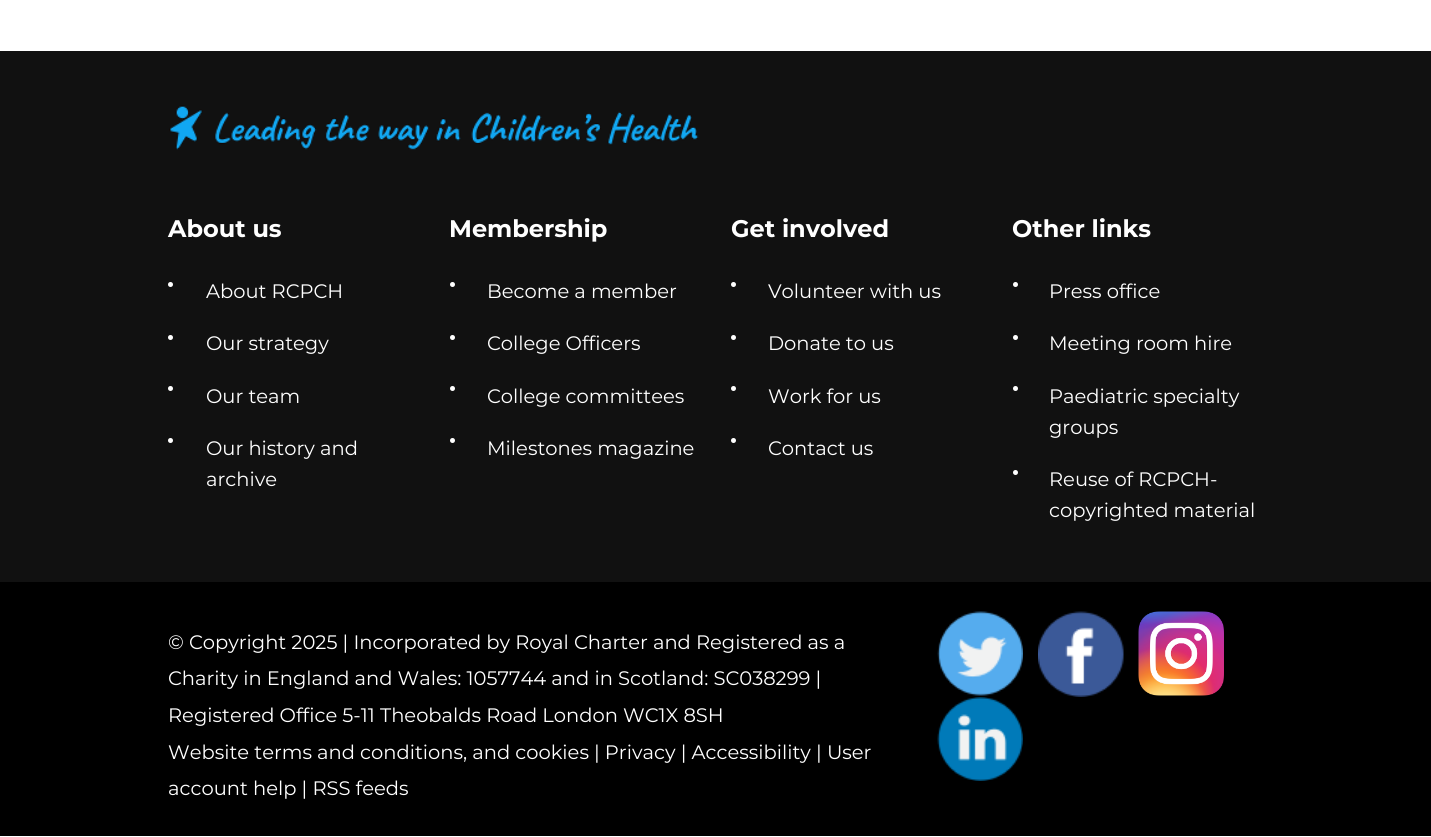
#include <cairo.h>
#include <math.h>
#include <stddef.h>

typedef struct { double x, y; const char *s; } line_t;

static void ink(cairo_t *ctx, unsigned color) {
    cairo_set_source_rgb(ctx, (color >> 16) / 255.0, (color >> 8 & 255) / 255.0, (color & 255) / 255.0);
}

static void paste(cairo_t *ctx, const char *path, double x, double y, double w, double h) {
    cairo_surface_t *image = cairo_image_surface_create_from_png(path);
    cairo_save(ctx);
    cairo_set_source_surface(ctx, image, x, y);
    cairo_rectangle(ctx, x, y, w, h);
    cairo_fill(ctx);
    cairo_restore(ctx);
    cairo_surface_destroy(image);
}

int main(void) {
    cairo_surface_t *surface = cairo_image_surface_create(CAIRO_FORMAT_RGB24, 1431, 837);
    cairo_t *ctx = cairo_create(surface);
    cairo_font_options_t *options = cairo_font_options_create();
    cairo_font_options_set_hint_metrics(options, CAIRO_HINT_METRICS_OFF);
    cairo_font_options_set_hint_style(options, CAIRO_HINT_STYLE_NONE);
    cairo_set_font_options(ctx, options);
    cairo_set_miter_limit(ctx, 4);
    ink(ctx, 0xFFFFFF);
    cairo_paint(ctx);
    ink(ctx, 0x111111);
    cairo_rectangle(ctx, 0, 51, 1431, 531);
    cairo_fill(ctx);
    paste(ctx, "media/1.png", 169, 105, 530, 45);
    cairo_select_font_face(ctx, "Montserrat", CAIRO_FONT_SLANT_NORMAL, CAIRO_FONT_WEIGHT_BOLD);
    cairo_set_font_size(ctx, 24);
    ink(ctx, 0xFFFFFF);
    cairo_move_to(ctx, 168, 237);
    cairo_show_text(ctx, "About us");
    cairo_new_path(ctx);
    cairo_arc(ctx, 170.5, 284.5, 2.5, 0, 2 * M_PI);
    cairo_fill(ctx);
    cairo_select_font_face(ctx, "Montserrat", CAIRO_FONT_SLANT_NORMAL, CAIRO_FONT_WEIGHT_NORMAL);
    cairo_set_font_size(ctx, 19.5);
    cairo_move_to(ctx, 206, 298);
    cairo_show_text(ctx, "About RCPCH");
    cairo_new_path(ctx);
    cairo_arc(ctx, 170.5, 337.5, 2.5, 0, 2 * M_PI);
    cairo_fill(ctx);
    cairo_move_to(ctx, 206, 350);
    cairo_show_text(ctx, "Our strategy");
    cairo_new_path(ctx);
    cairo_arc(ctx, 170.5, 388.5, 2.5, 0, 2 * M_PI);
    cairo_fill(ctx);
    cairo_move_to(ctx, 206, 403);
    cairo_show_text(ctx, "Our team");
    cairo_new_path(ctx);
    cairo_arc(ctx, 170.5, 440.5, 2.5, 0, 2 * M_PI);
    cairo_fill(ctx);
    cairo_move_to(ctx, 206, 455);
    cairo_show_text(ctx, "Our history and");
    cairo_move_to(ctx, 206, 486);
    cairo_show_text(ctx, "archive");
    cairo_select_font_face(ctx, "Montserrat", CAIRO_FONT_SLANT_NORMAL, CAIRO_FONT_WEIGHT_BOLD);
    cairo_set_font_size(ctx, 24);
    cairo_move_to(ctx, 449, 237);
    cairo_show_text(ctx, "Membership");
    cairo_new_path(ctx);
    cairo_arc(ctx, 452.5, 284.5, 2.5, 0, 2 * M_PI);
    cairo_fill(ctx);
    cairo_select_font_face(ctx, "Montserrat", CAIRO_FONT_SLANT_NORMAL, CAIRO_FONT_WEIGHT_NORMAL);
    cairo_set_font_size(ctx, 19.5);
    cairo_move_to(ctx, 487, 298);
    cairo_show_text(ctx, "Become a member");
    cairo_new_path(ctx);
    cairo_arc(ctx, 452.5, 337.5, 2.5, 0, 2 * M_PI);
    cairo_fill(ctx);
    cairo_move_to(ctx, 487, 350);
    cairo_show_text(ctx, "College Officers");
    cairo_new_path(ctx);
    cairo_arc(ctx, 452.5, 388.5, 2.5, 0, 2 * M_PI);
    cairo_fill(ctx);
    cairo_move_to(ctx, 487, 403);
    cairo_show_text(ctx, "College committees");
    cairo_new_path(ctx);
    cairo_arc(ctx, 452.5, 440.5, 2.5, 0, 2 * M_PI);
    cairo_fill(ctx);
    cairo_move_to(ctx, 487, 455);
    cairo_show_text(ctx, "Milestones magazine");
    cairo_select_font_face(ctx, "Montserrat", CAIRO_FONT_SLANT_NORMAL, CAIRO_FONT_WEIGHT_BOLD);
    cairo_set_font_size(ctx, 24);
    cairo_move_to(ctx, 731, 237);
    cairo_show_text(ctx, "Get involved");
    cairo_new_path(ctx);
    cairo_arc(ctx, 733.5, 284.5, 2.5, 0, 2 * M_PI);
    cairo_fill(ctx);
    cairo_select_font_face(ctx, "Montserrat", CAIRO_FONT_SLANT_NORMAL, CAIRO_FONT_WEIGHT_NORMAL);
    cairo_set_font_size(ctx, 19.5);
    cairo_move_to(ctx, 768, 298);
    cairo_show_text(ctx, "Volunteer with us");
    cairo_new_path(ctx);
    cairo_arc(ctx, 733.5, 337.5, 2.5, 0, 2 * M_PI);
    cairo_fill(ctx);
    cairo_move_to(ctx, 768, 350);
    cairo_show_text(ctx, "Donate to us");
    cairo_new_path(ctx);
    cairo_arc(ctx, 733.5, 388.5, 2.5, 0, 2 * M_PI);
    cairo_fill(ctx);
    cairo_move_to(ctx, 768, 403);
    cairo_show_text(ctx, "Work for us");
    cairo_new_path(ctx);
    cairo_arc(ctx, 733.5, 440.5, 2.5, 0, 2 * M_PI);
    cairo_fill(ctx);
    cairo_move_to(ctx, 768, 455);
    cairo_show_text(ctx, "Contact us");
    cairo_select_font_face(ctx, "Montserrat", CAIRO_FONT_SLANT_NORMAL, CAIRO_FONT_WEIGHT_BOLD);
    cairo_set_font_size(ctx, 24);
    cairo_move_to(ctx, 1012, 237);
    cairo_show_text(ctx, "Other links");
    cairo_new_path(ctx);
    cairo_arc(ctx, 1015.5, 284.5, 2.5, 0, 2 * M_PI);
    cairo_fill(ctx);
    cairo_select_font_face(ctx, "Montserrat", CAIRO_FONT_SLANT_NORMAL, CAIRO_FONT_WEIGHT_NORMAL);
    cairo_set_font_size(ctx, 19.5);
    cairo_move_to(ctx, 1049, 298);
    cairo_show_text(ctx, "Press office");
    cairo_new_path(ctx);
    cairo_arc(ctx, 1015.5, 337.5, 2.5, 0, 2 * M_PI);
    cairo_fill(ctx);
    cairo_move_to(ctx, 1049, 350);
    cairo_show_text(ctx, "Meeting room hire");
    cairo_new_path(ctx);
    cairo_arc(ctx, 1015.5, 388.5, 2.5, 0, 2 * M_PI);
    cairo_fill(ctx);
    cairo_move_to(ctx, 1049, 403);
    cairo_show_text(ctx, "Paediatric specialty");
    cairo_move_to(ctx, 1049, 434);
    cairo_show_text(ctx, "groups");
    cairo_new_path(ctx);
    cairo_arc(ctx, 1015.5, 472.5, 2.5, 0, 2 * M_PI);
    cairo_fill(ctx);
    cairo_move_to(ctx, 1049, 486);
    cairo_show_text(ctx, "Reuse of RCPCH-");
    cairo_move_to(ctx, 1049, 517);
    cairo_show_text(ctx, "copyrighted material");
    ink(ctx, 0x000000);
    cairo_rectangle(ctx, 0, 582, 1431, 254);
    cairo_fill(ctx);
    ink(ctx, 0xFFFFFF);
    {
        static const line_t items[] = {
            {168, 649, "© Copyright 2025 | Incorporated by Royal Charter and Registered as a"},
            {168, 685, "Charity in England and Wales: 1057744 and in Scotland: SC038299 |"},
            {168, 722, "Registered Office 5-11 Theobalds Road London WC1X 8SH"},
            {168, 759, "Website terms and conditions, and cookies | Privacy | Accessibility | User"},
            {168, 795, "account help | RSS feeds"},
        };
        for (size_t i = 0; i < sizeof items / sizeof *items; i++) {
            cairo_move_to(ctx, items[i].x, items[i].y);
            cairo_show_text(ctx, items[i].s);
        }
    }
    paste(ctx, "media/2.png", 937, 611, 86, 85);
    paste(ctx, "media/3.png", 1038, 611, 86, 86);
    paste(ctx, "media/4.png", 1138, 611, 86, 85);
    paste(ctx, "media/5.png", 937, 697, 86, 84);
    cairo_surface_write_to_png(surface, "image.png");
    cairo_font_options_destroy(options);
    cairo_destroy(ctx);
    cairo_surface_destroy(surface);
    return 0;
}
